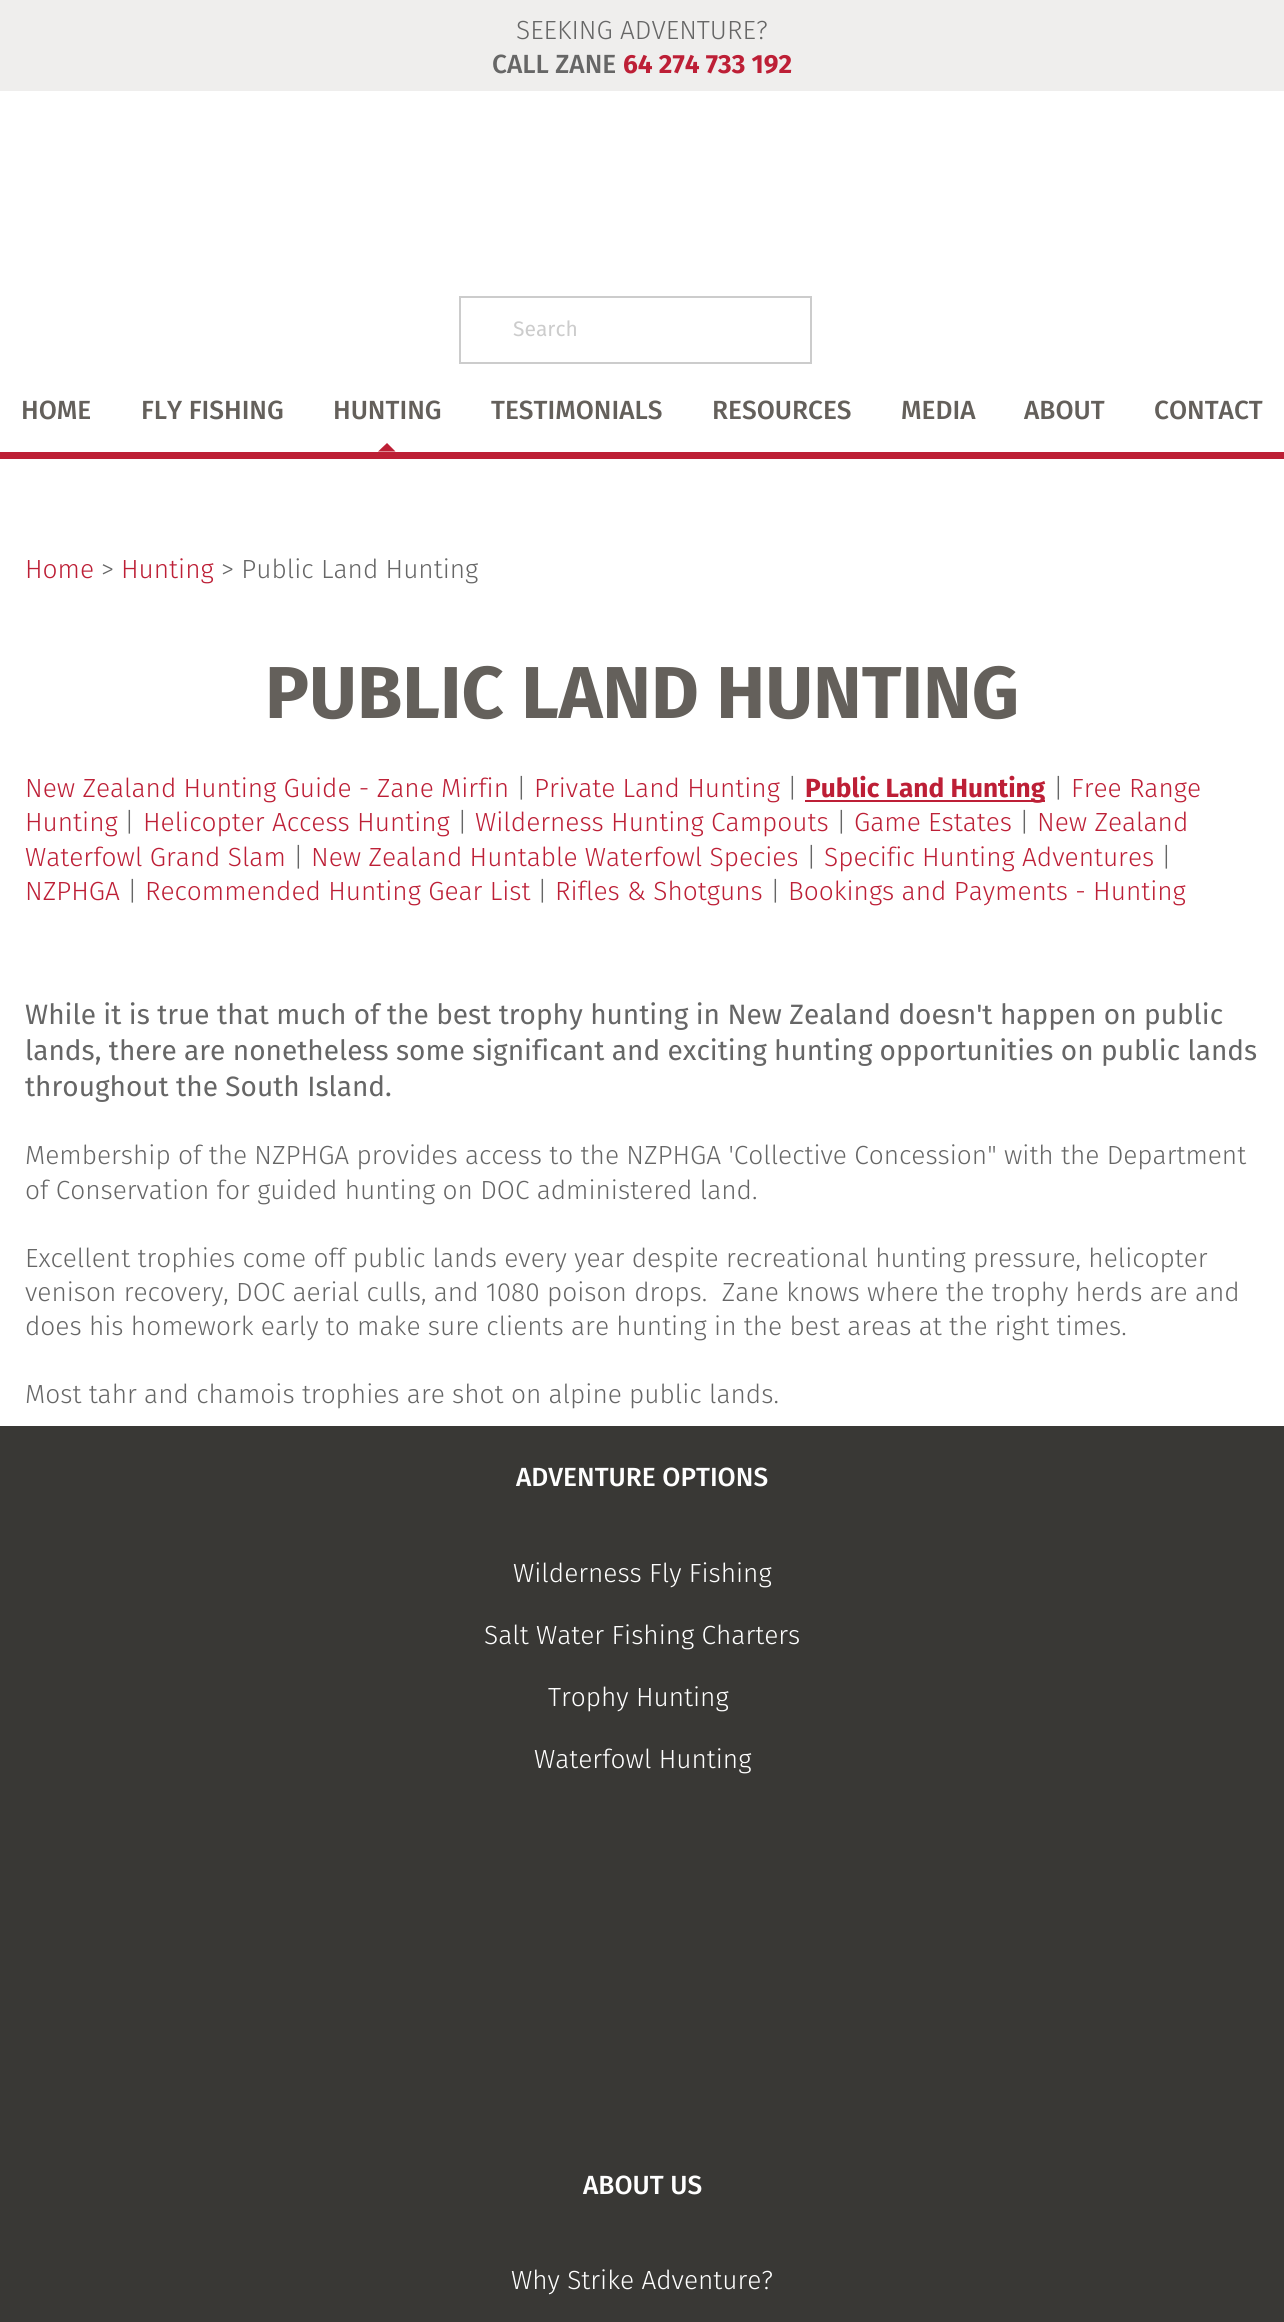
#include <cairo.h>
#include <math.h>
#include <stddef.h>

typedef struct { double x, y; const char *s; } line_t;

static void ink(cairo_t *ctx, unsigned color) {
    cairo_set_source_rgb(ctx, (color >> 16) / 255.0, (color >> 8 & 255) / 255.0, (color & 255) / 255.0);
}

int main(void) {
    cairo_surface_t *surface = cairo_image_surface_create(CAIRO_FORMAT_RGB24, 1284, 2322);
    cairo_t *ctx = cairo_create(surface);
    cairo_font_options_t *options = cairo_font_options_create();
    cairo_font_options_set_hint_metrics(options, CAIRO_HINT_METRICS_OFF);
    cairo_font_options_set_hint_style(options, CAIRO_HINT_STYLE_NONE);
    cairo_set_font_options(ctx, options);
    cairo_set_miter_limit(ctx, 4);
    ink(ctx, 0xFFFFFF);
    cairo_paint(ctx);
    ink(ctx, 0xBD1F35);
    cairo_rectangle(ctx, 0, 452, 1284, 7);
    cairo_fill(ctx);
    ink(ctx, 0xEFEEED);
    cairo_rectangle(ctx, 0, 0, 1284, 91);
    cairo_fill(ctx);
    cairo_select_font_face(ctx, "Fira Sans Light", CAIRO_FONT_SLANT_NORMAL, CAIRO_FONT_WEIGHT_NORMAL);
    cairo_set_font_size(ctx, 26.25);
    ink(ctx, 0x666666);
    cairo_move_to(ctx, 516, 39);
    cairo_show_text(ctx, "SEEKING ADVENTURE?");
    cairo_select_font_face(ctx, "Fira Sans Medium", CAIRO_FONT_SLANT_NORMAL, CAIRO_FONT_WEIGHT_NORMAL);
    cairo_move_to(ctx, 492, 73);
    cairo_show_text(ctx, "CALL ZANE");
    cairo_select_font_face(ctx, "Fira Sans", CAIRO_FONT_SLANT_NORMAL, CAIRO_FONT_WEIGHT_BOLD);
    ink(ctx, 0xBD1F36);
    cairo_move_to(ctx, 623, 73);
    cairo_show_text(ctx, "64 274 733 192");
    cairo_rectangle(ctx, 460, 297, 351, 66);
    ink(ctx, 0xCCCCCC);
    cairo_stroke(ctx);
    cairo_select_font_face(ctx, "Fira Sans", CAIRO_FONT_SLANT_NORMAL, CAIRO_FONT_WEIGHT_NORMAL);
    cairo_set_font_size(ctx, 21);
    cairo_move_to(ctx, 513, 336);
    cairo_show_text(ctx, "Search");
    cairo_select_font_face(ctx, "Fira Sans Medium", CAIRO_FONT_SLANT_NORMAL, CAIRO_FONT_WEIGHT_NORMAL);
    cairo_set_font_size(ctx, 26.25);
    ink(ctx, 0x64605B);
    {
        static const line_t items[] = {
            {21, 419, "HOME"},
            {141, 419, "FLY FISHING"},
            {333, 419, "HUNTING"},
        };
        for (size_t i = 0; i < sizeof items / sizeof *items; i++) {
            cairo_move_to(ctx, items[i].x, items[i].y);
            cairo_show_text(ctx, items[i].s);
        }
    }
    ink(ctx, 0xBD1F35);
    cairo_new_path(ctx);
    cairo_move_to(ctx, 395.5, 451.5);
    cairo_line_to(ctx, 378, 451.5);
    cairo_line_to(ctx, 387, 443);
    cairo_close_path(ctx);
    cairo_fill(ctx);
    ink(ctx, 0x64605B);
    {
        static const line_t items[] = {
            {491, 419, "TESTIMONIALS"},
            {712, 419, "RESOURCES"},
            {901, 419, "MEDIA"},
            {1024, 419, "ABOUT"},
            {1154, 419, "CONTACT"},
        };
        for (size_t i = 0; i < sizeof items / sizeof *items; i++) {
            cairo_move_to(ctx, items[i].x, items[i].y);
            cairo_show_text(ctx, items[i].s);
        }
    }
    cairo_select_font_face(ctx, "Fira Sans Light", CAIRO_FONT_SLANT_NORMAL, CAIRO_FONT_WEIGHT_NORMAL);
    ink(ctx, 0xBD1F36);
    cairo_move_to(ctx, 25, 578);
    cairo_show_text(ctx, "Home");
    ink(ctx, 0x666666);
    cairo_move_to(ctx, 101, 578);
    cairo_show_text(ctx, ">");
    ink(ctx, 0xBD1F36);
    cairo_move_to(ctx, 121, 578);
    cairo_show_text(ctx, "Hunting");
    ink(ctx, 0x666666);
    cairo_move_to(ctx, 221, 578);
    cairo_show_text(ctx, "> Public Land Hunting");
    cairo_select_font_face(ctx, "Fira Sans", CAIRO_FONT_SLANT_NORMAL, CAIRO_FONT_WEIGHT_BOLD);
    cairo_set_font_size(ctx, 73.5);
    ink(ctx, 0x64605B);
    cairo_move_to(ctx, 265, 718);
    cairo_show_text(ctx, "PUBLIC LAND HUNTING");
    cairo_select_font_face(ctx, "Fira Sans Light", CAIRO_FONT_SLANT_NORMAL, CAIRO_FONT_WEIGHT_NORMAL);
    cairo_set_font_size(ctx, 26.25);
    ink(ctx, 0xBD1F36);
    cairo_move_to(ctx, 25, 797);
    cairo_show_text(ctx, "New Zealand Hunting Guide - Zane Mirfin");
    ink(ctx, 0x666666);
    cairo_move_to(ctx, 516, 797);
    cairo_show_text(ctx, "|");
    ink(ctx, 0xBD1F36);
    cairo_move_to(ctx, 534, 797);
    cairo_show_text(ctx, "Private Land Hunting");
    ink(ctx, 0x666666);
    cairo_move_to(ctx, 787, 797);
    cairo_show_text(ctx, "|");
    ink(ctx, 0xBD1F36);
    cairo_rectangle(ctx, 805, 800, 240, 2);
    cairo_fill(ctx);
    cairo_select_font_face(ctx, "Fira Sans", CAIRO_FONT_SLANT_NORMAL, CAIRO_FONT_WEIGHT_BOLD);
    cairo_move_to(ctx, 805, 797);
    cairo_show_text(ctx, "Public Land Hunting");
    cairo_select_font_face(ctx, "Fira Sans Light", CAIRO_FONT_SLANT_NORMAL, CAIRO_FONT_WEIGHT_NORMAL);
    ink(ctx, 0x666666);
    cairo_move_to(ctx, 1053, 797);
    cairo_show_text(ctx, "|");
    ink(ctx, 0xBD1F36);
    cairo_move_to(ctx, 1071, 797);
    cairo_show_text(ctx, "Free Range");
    cairo_move_to(ctx, 25, 831);
    cairo_show_text(ctx, "Hunting");
    ink(ctx, 0x666666);
    cairo_move_to(ctx, 124, 831);
    cairo_show_text(ctx, "|");
    ink(ctx, 0xBD1F36);
    cairo_move_to(ctx, 143, 831);
    cairo_show_text(ctx, "Helicopter Access Hunting");
    ink(ctx, 0x666666);
    cairo_move_to(ctx, 457, 831);
    cairo_show_text(ctx, "|");
    ink(ctx, 0xBD1F36);
    cairo_move_to(ctx, 475, 831);
    cairo_show_text(ctx, "Wilderness Hunting Campouts");
    ink(ctx, 0x666666);
    cairo_move_to(ctx, 836, 831);
    cairo_show_text(ctx, "|");
    ink(ctx, 0xBD1F36);
    cairo_move_to(ctx, 854, 831);
    cairo_show_text(ctx, "Game Estates");
    ink(ctx, 0x666666);
    cairo_move_to(ctx, 1019, 831);
    cairo_show_text(ctx, "|");
    ink(ctx, 0xBD1F36);
    cairo_move_to(ctx, 1037, 831);
    cairo_show_text(ctx, "New Zealand");
    cairo_move_to(ctx, 25, 866);
    cairo_show_text(ctx, "Waterfowl Grand Slam");
    ink(ctx, 0x666666);
    cairo_move_to(ctx, 293, 866);
    cairo_show_text(ctx, "|");
    ink(ctx, 0xBD1F36);
    cairo_move_to(ctx, 311, 866);
    cairo_show_text(ctx, "New Zealand Huntable Waterfowl Species");
    ink(ctx, 0x666666);
    cairo_move_to(ctx, 806, 866);
    cairo_show_text(ctx, "|");
    ink(ctx, 0xBD1F36);
    cairo_move_to(ctx, 824, 866);
    cairo_show_text(ctx, "Specific Hunting Adventures");
    ink(ctx, 0x666666);
    cairo_move_to(ctx, 1161, 866);
    cairo_show_text(ctx, "|");
    ink(ctx, 0xBD1F36);
    cairo_move_to(ctx, 25, 900);
    cairo_show_text(ctx, "NZPHGA");
    ink(ctx, 0x666666);
    cairo_move_to(ctx, 127, 900);
    cairo_show_text(ctx, "|");
    ink(ctx, 0xBD1F36);
    cairo_move_to(ctx, 145, 900);
    cairo_show_text(ctx, "Recommended Hunting Gear List");
    ink(ctx, 0x666666);
    cairo_move_to(ctx, 537, 900);
    cairo_show_text(ctx, "|");
    ink(ctx, 0xBD1F36);
    cairo_move_to(ctx, 555, 900);
    cairo_show_text(ctx, "Rifles & Shotguns");
    ink(ctx, 0x666666);
    cairo_move_to(ctx, 770, 900);
    cairo_show_text(ctx, "|");
    ink(ctx, 0xBD1F36);
    cairo_move_to(ctx, 788, 900);
    cairo_show_text(ctx, "Bookings and Payments - Hunting");
    cairo_select_font_face(ctx, "Fira Sans", CAIRO_FONT_SLANT_NORMAL, CAIRO_FONT_WEIGHT_NORMAL);
    cairo_set_font_size(ctx, 28);
    ink(ctx, 0x666666);
    {
        static const line_t items[] = {
            {25, 1024, "While it is true that much of the best trophy hunting in New Zealand doesn't happen on public"},
            {25, 1060, "lands, there are nonetheless some significant and exciting hunting opportunities on public lands"},
            {25, 1096, "throughout the South Island."},
        };
        for (size_t i = 0; i < sizeof items / sizeof *items; i++) {
            cairo_move_to(ctx, items[i].x, items[i].y);
            cairo_show_text(ctx, items[i].s);
        }
    }
    cairo_select_font_face(ctx, "Fira Sans Light", CAIRO_FONT_SLANT_NORMAL, CAIRO_FONT_WEIGHT_NORMAL);
    cairo_set_font_size(ctx, 26.25);
    {
        static const line_t items[] = {
            {25, 1164, "Membership of the NZPHGA provides access to the NZPHGA 'Collective Concession\" with the Department"},
            {25, 1199, "of Conservation for guided hunting on DOC administered land."},
            {25, 1267, "Excellent trophies come off public lands every year despite recreational hunting pressure, helicopter"},
            {25, 1301, "venison recovery, DOC aerial culls, and 1080 poison drops.  Zane knows where the trophy herds are and"},
            {25, 1335, "does his homework early to make sure clients are hunting in the best areas at the right times."},
            {25, 1403, "Most tahr and chamois trophies are shot on alpine public lands."},
        };
        for (size_t i = 0; i < sizeof items / sizeof *items; i++) {
            cairo_move_to(ctx, items[i].x, items[i].y);
            cairo_show_text(ctx, items[i].s);
        }
    }
    ink(ctx, 0x393835);
    cairo_rectangle(ctx, 0, 1426, 1284, 896);
    cairo_fill(ctx);
    cairo_select_font_face(ctx, "Fira Sans Medium", CAIRO_FONT_SLANT_NORMAL, CAIRO_FONT_WEIGHT_NORMAL);
    ink(ctx, 0xFFFFFF);
    cairo_move_to(ctx, 516, 1486);
    cairo_show_text(ctx, "ADVENTURE OPTIONS");
    cairo_select_font_face(ctx, "Fira Sans Light", CAIRO_FONT_SLANT_NORMAL, CAIRO_FONT_WEIGHT_NORMAL);
    {
        static const line_t items[] = {
            {513, 1582, "Wilderness Fly Fishing"},
            {484, 1644, "Salt Water Fishing Charters"},
            {548, 1706, "Trophy Hunting"},
            {534, 1768, "Waterfowl Hunting"},
        };
        for (size_t i = 0; i < sizeof items / sizeof *items; i++) {
            cairo_move_to(ctx, items[i].x, items[i].y);
            cairo_show_text(ctx, items[i].s);
        }
    }
    cairo_select_font_face(ctx, "Fira Sans Medium", CAIRO_FONT_SLANT_NORMAL, CAIRO_FONT_WEIGHT_NORMAL);
    cairo_move_to(ctx, 583, 2194);
    cairo_show_text(ctx, "ABOUT US");
    cairo_select_font_face(ctx, "Fira Sans Light", CAIRO_FONT_SLANT_NORMAL, CAIRO_FONT_WEIGHT_NORMAL);
    cairo_move_to(ctx, 511, 2289);
    cairo_show_text(ctx, "Why Strike Adventure?");
    cairo_surface_write_to_png(surface, "image.png");
    cairo_font_options_destroy(options);
    cairo_destroy(ctx);
    cairo_surface_destroy(surface);
    return 0;
}
